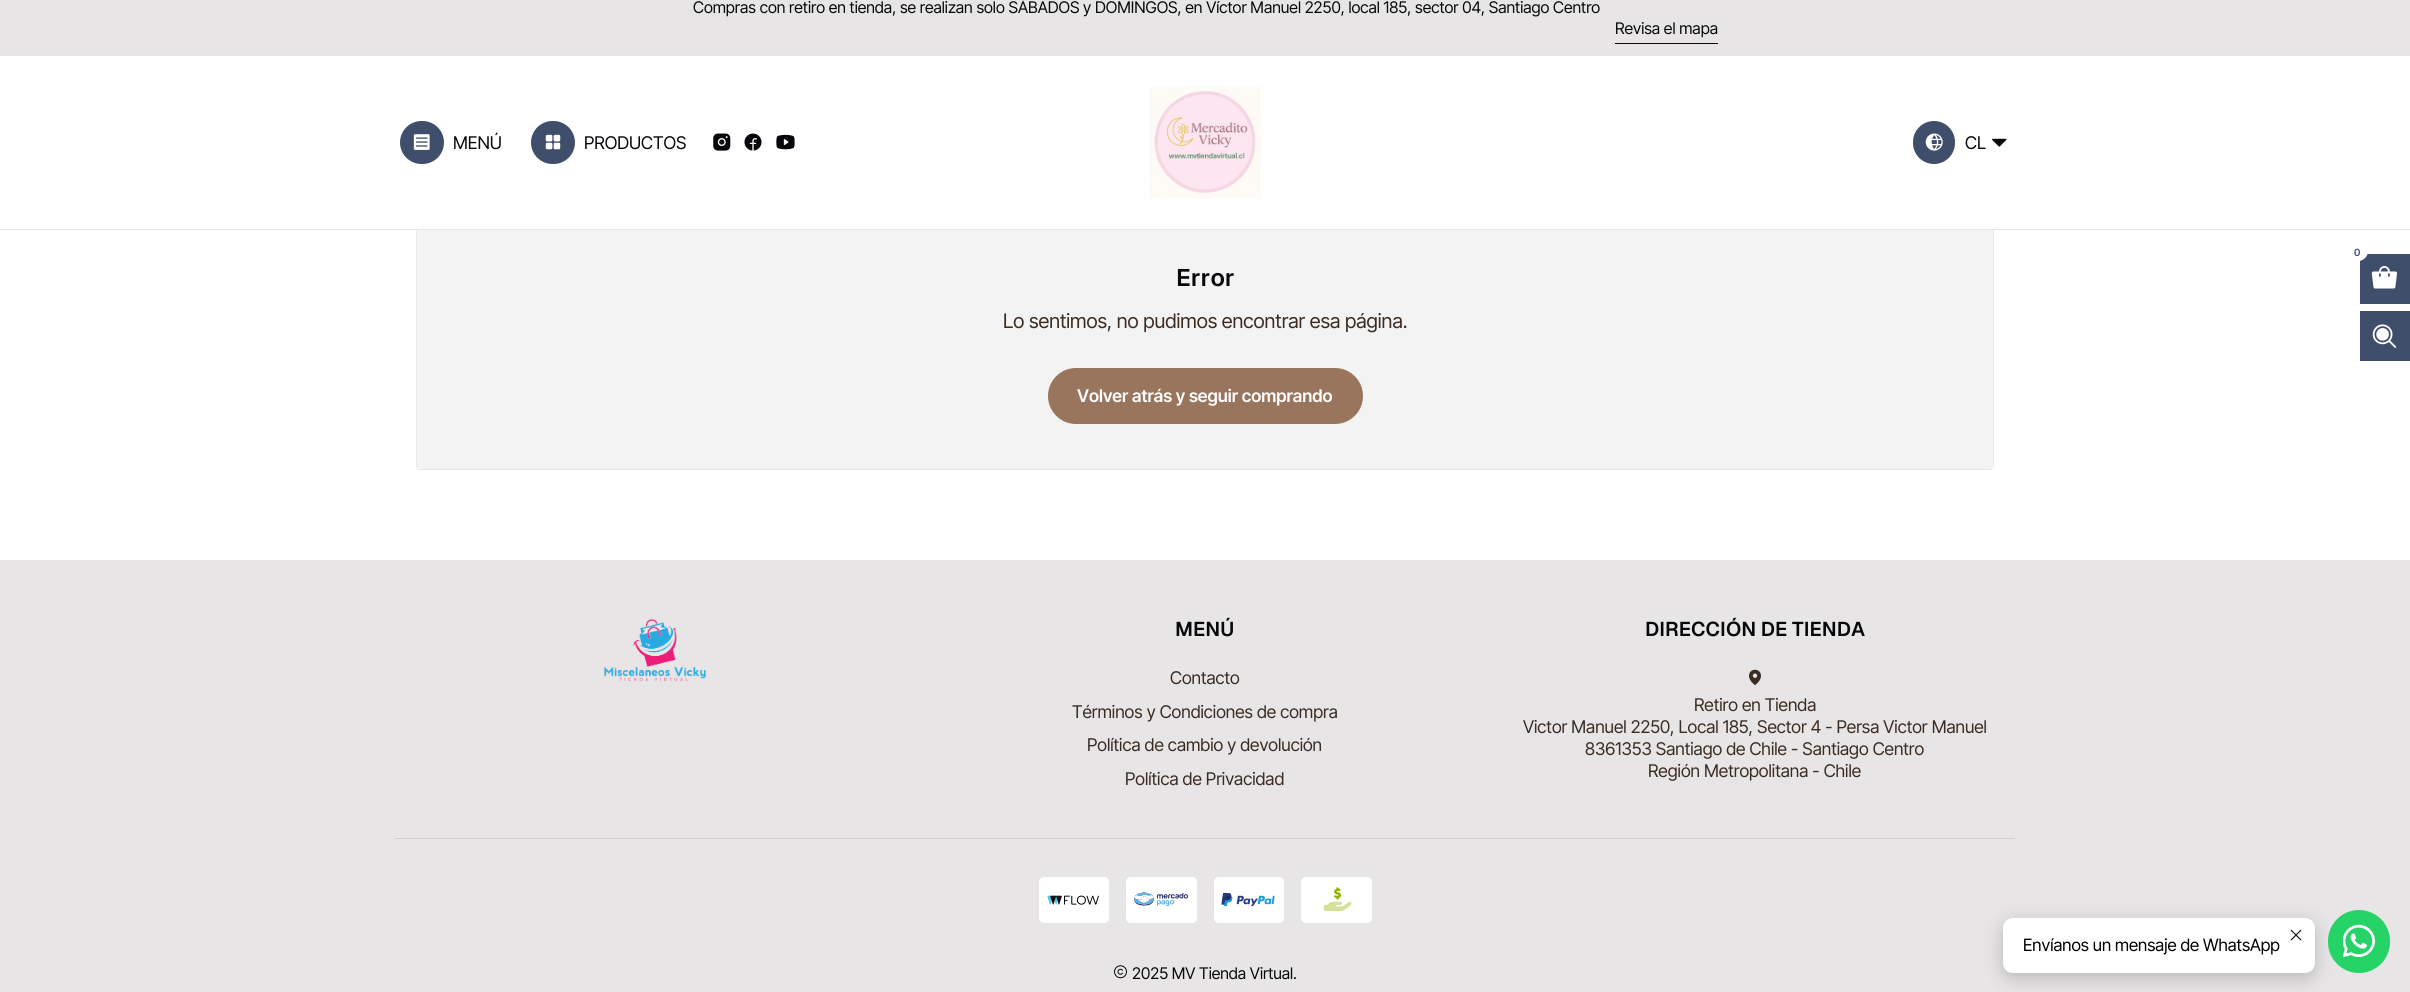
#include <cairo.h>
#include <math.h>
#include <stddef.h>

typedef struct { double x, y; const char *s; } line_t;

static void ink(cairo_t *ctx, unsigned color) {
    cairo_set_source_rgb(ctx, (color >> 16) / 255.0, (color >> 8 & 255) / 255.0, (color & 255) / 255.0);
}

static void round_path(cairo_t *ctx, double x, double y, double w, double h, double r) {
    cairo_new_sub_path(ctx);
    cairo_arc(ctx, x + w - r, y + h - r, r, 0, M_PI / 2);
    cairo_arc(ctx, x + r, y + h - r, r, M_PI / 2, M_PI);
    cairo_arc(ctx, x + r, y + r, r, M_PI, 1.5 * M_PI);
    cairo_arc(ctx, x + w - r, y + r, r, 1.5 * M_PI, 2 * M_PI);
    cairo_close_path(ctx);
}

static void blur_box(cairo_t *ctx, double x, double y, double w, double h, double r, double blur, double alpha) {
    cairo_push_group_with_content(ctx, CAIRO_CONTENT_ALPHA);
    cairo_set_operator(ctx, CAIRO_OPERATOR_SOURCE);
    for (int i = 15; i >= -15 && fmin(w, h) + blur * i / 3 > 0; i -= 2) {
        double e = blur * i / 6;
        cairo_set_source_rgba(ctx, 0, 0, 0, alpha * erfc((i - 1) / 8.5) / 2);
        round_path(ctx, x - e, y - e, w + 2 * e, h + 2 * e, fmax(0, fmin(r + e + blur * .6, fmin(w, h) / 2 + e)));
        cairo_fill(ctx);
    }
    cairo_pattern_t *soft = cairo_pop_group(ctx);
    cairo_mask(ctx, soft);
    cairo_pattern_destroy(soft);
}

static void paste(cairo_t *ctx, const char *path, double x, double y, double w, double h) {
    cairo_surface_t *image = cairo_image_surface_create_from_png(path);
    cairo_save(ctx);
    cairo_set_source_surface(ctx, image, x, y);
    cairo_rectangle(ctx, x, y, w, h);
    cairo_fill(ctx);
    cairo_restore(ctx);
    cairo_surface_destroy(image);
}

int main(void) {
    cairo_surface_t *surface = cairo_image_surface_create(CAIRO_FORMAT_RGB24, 2410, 992);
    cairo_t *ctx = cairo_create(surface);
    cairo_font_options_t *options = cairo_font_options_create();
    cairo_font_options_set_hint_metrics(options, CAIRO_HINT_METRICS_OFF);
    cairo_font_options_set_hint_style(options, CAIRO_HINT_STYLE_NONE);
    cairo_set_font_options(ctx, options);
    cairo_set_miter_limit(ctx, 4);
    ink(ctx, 0xFFFFFF);
    cairo_paint(ctx);
    ink(ctx, 0xE8E5E6);
    cairo_rectangle(ctx, 0, 0, 2410, 56);
    cairo_fill(ctx);
    cairo_select_font_face(ctx, "Inter Tight", CAIRO_FONT_SLANT_NORMAL, CAIRO_FONT_WEIGHT_NORMAL);
    cairo_set_font_size(ctx, 16);
    ink(ctx, 0x06080B);
    cairo_move_to(ctx, 693, 13);
    cairo_show_text(ctx, "Compras con retiro en tienda, se realizan solo SÁBADOS y DOMINGOS, en Víctor Manuel 2250, local 185, sector 04, Santiago Centro");
    cairo_rectangle(ctx, 1615, 43, 103, 1);
    cairo_fill(ctx);
    cairo_move_to(ctx, 1615, 34);
    cairo_show_text(ctx, "Revisa el mapa");
    ink(ctx, 0xF3F3F4);
    round_path(ctx, 416, 220, 1578, 250, 6);
    cairo_fill(ctx);
    cairo_rectangle(ctx, 416.5, 220.5, 1577, 249);
    cairo_set_source_rgba(ctx, 0.024, 0.031, 0.043, 0.05);
    cairo_set_line_width(ctx, 1);
    cairo_stroke(ctx);
    ink(ctx, 0xFFFFFF);
    cairo_rectangle(ctx, 416, 220, 1578, 9);
    cairo_fill(ctx);
    ink(ctx, 0xE6E6E7);
    cairo_rectangle(ctx, 0, 229, 2410, 1);
    cairo_fill(ctx);
    ink(ctx, 0x3F4F6B);
    round_path(ctx, 400, 121, 44, 43, 21.5);
    cairo_fill(ctx);
    paste(ctx, "media/1.png", 413, 134, 17, 16);
    cairo_set_font_size(ctx, 17.5);
    ink(ctx, 0x06080B);
    cairo_move_to(ctx, 453, 149);
    cairo_show_text(ctx, "MENÚ");
    ink(ctx, 0x3F4F6B);
    round_path(ctx, 531, 121, 44, 43, 21.5);
    cairo_fill(ctx);
    paste(ctx, "media/2.png", 545, 134, 16, 16);
    ink(ctx, 0x06080B);
    cairo_move_to(ctx, 584, 149);
    cairo_show_text(ctx, "PRODUCTOS");
    paste(ctx, "media/3.png", 713, 133, 18, 18);
    paste(ctx, "media/4.png", 744, 133, 18, 18);
    paste(ctx, "media/5.png", 776, 134, 19, 16);
    paste(ctx, "media/6.png", 1149, 86, 112, 113);
    ink(ctx, 0x3F4F6B);
    round_path(ctx, 1913, 121, 42, 43, 21);
    cairo_fill(ctx);
    paste(ctx, "media/7.png", 1925, 133, 18, 18);
    ink(ctx, 0x06080B);
    cairo_move_to(ctx, 1965, 149);
    cairo_show_text(ctx, "CL");
    paste(ctx, "media/8.png", 1992, 138, 15, 9);
    ink(ctx, 0x3F4F6B);
    cairo_rectangle(ctx, 2360, 254, 50, 50);
    cairo_fill(ctx);
    ink(ctx, 0xFFFFFF);
    cairo_arc(ctx, 2358, 251, 10, 0, 2 * M_PI);
    cairo_fill(ctx);
    cairo_select_font_face(ctx, "Inter Tight SemiBold", CAIRO_FONT_SLANT_NORMAL, CAIRO_FONT_WEIGHT_NORMAL);
    cairo_set_font_size(ctx, 10);
    ink(ctx, 0x3F4F6B);
    cairo_move_to(ctx, 2354, 256);
    cairo_show_text(ctx, "0");
    paste(ctx, "media/9.png", 2371, 266, 26, 23);
    cairo_rectangle(ctx, 2360, 311, 50, 50);
    cairo_fill(ctx);
    paste(ctx, "media/10.png", 2372, 324, 25, 24);
    cairo_select_font_face(ctx, "Geist SemiBold", CAIRO_FONT_SLANT_NORMAL, CAIRO_FONT_WEIGHT_NORMAL);
    cairo_set_font_size(ctx, 24);
    ink(ctx, 0x06080B);
    cairo_move_to(ctx, 1176, 286);
    cairo_show_text(ctx, "Error");
    cairo_select_font_face(ctx, "Inter Tight", CAIRO_FONT_SLANT_NORMAL, CAIRO_FONT_WEIGHT_NORMAL);
    cairo_set_font_size(ctx, 20);
    ink(ctx, 0x3A2C23);
    cairo_move_to(ctx, 1003, 328);
    cairo_show_text(ctx, "Lo sentimos, no pudimos encontrar esa página.");
    ink(ctx, 0x99755D);
    round_path(ctx, 1048, 368, 315, 56, 28);
    cairo_fill(ctx);
    cairo_select_font_face(ctx, "Inter Tight SemiBold", CAIRO_FONT_SLANT_NORMAL, CAIRO_FONT_WEIGHT_NORMAL);
    cairo_set_font_size(ctx, 17.5);
    ink(ctx, 0xFFFFFF);
    cairo_move_to(ctx, 1077, 402);
    cairo_show_text(ctx, "Volver atrás y seguir comprando");
    ink(ctx, 0xE8E5E6);
    cairo_rectangle(ctx, 0, 560, 2410, 432);
    cairo_fill(ctx);
    paste(ctx, "media/11.png", 603, 619, 103, 63);
    cairo_select_font_face(ctx, "Geist SemiBold", CAIRO_FONT_SLANT_NORMAL, CAIRO_FONT_WEIGHT_NORMAL);
    cairo_set_font_size(ctx, 20);
    ink(ctx, 0x06080B);
    cairo_move_to(ctx, 1175, 636);
    cairo_show_text(ctx, "MENÚ");
    cairo_select_font_face(ctx, "Inter Tight", CAIRO_FONT_SLANT_NORMAL, CAIRO_FONT_WEIGHT_NORMAL);
    cairo_set_font_size(ctx, 17.5);
    ink(ctx, 0x3A2C23);
    {
        static const line_t items[] = {
            {1170, 684, "Contacto"},
            {1072, 718, "Términos y Condiciones de compra"},
            {1087, 751, "Política de cambio y devolución"},
            {1125, 785, "Política de Privacidad"},
        };
        for (size_t i = 0; i < sizeof items / sizeof *items; i++) {
            cairo_move_to(ctx, items[i].x, items[i].y);
            cairo_show_text(ctx, items[i].s);
        }
    }
    cairo_select_font_face(ctx, "Geist SemiBold", CAIRO_FONT_SLANT_NORMAL, CAIRO_FONT_WEIGHT_NORMAL);
    cairo_set_font_size(ctx, 20);
    ink(ctx, 0x06080B);
    cairo_move_to(ctx, 1645, 636);
    cairo_show_text(ctx, "DIRECCIÓN DE TIENDA");
    paste(ctx, "media/12.png", 1749, 669, 12, 16);
    cairo_select_font_face(ctx, "Inter Tight", CAIRO_FONT_SLANT_NORMAL, CAIRO_FONT_WEIGHT_NORMAL);
    cairo_set_font_size(ctx, 17.5);
    ink(ctx, 0x3A2C23);
    {
        static const line_t items[] = {
            {1694, 711, "Retiro en Tienda"},
            {1523, 733, "Victor Manuel 2250, Local 185, Sector 4 - Persa Victor Manuel"},
            {1585, 755, "8361353 Santiago de Chile - Santiago Centro"},
            {1648, 777, "Región Metropolitana - Chile"},
        };
        for (size_t i = 0; i < sizeof items / sizeof *items; i++) {
            cairo_move_to(ctx, items[i].x, items[i].y);
            cairo_show_text(ctx, items[i].s);
        }
    }
    ink(ctx, 0xD1CFD0);
    cairo_rectangle(ctx, 395, 838, 1620, 1);
    cairo_fill(ctx);
    ink(ctx, 0xFFFFFF);
    round_path(ctx, 1038, 876, 72, 48, 6);
    cairo_fill(ctx);
    round_path(ctx, 1038.5, 876.5, 71, 47, 5.5);
    cairo_set_source_rgba(ctx, 0.024, 0.031, 0.043, 0.1);
    cairo_stroke(ctx);
    paste(ctx, "media/13.png", 1047, 895, 52, 10);
    ink(ctx, 0xFFFFFF);
    round_path(ctx, 1125, 876, 73, 48, 6);
    cairo_fill(ctx);
    round_path(ctx, 1125.5, 876.5, 72, 47, 5.5);
    cairo_set_source_rgba(ctx, 0.024, 0.031, 0.043, 0.1);
    cairo_stroke(ctx);
    paste(ctx, "media/14.png", 1134, 892, 54, 14);
    ink(ctx, 0xFFFFFF);
    round_path(ctx, 1213, 876, 72, 48, 6);
    cairo_fill(ctx);
    round_path(ctx, 1213.5, 876.5, 71, 47, 5.5);
    cairo_set_source_rgba(ctx, 0.024, 0.031, 0.043, 0.1);
    cairo_stroke(ctx);
    paste(ctx, "media/15.png", 1221, 893, 54, 14);
    ink(ctx, 0xFFFFFF);
    round_path(ctx, 1300, 876, 73, 48, 6);
    cairo_fill(ctx);
    round_path(ctx, 1300.5, 876.5, 72, 47, 5.5);
    cairo_set_source_rgba(ctx, 0.024, 0.031, 0.043, 0.1);
    cairo_stroke(ctx);
    paste(ctx, "media/16.png", 1323, 887, 29, 24);
    paste(ctx, "media/17.png", 1114, 965, 13, 14);
    cairo_set_font_size(ctx, 16);
    ink(ctx, 0x06080B);
    cairo_move_to(ctx, 1132, 979);
    cairo_show_text(ctx, "2025 MV Tienda Virtual.");
    ink(ctx, 0x000000);
    blur_box(ctx, 2003, 923, 312, 55, 10, 9.5, 0.2);
    ink(ctx, 0xFFFFFF);
    round_path(ctx, 2003, 918, 312, 55, 10);
    cairo_fill(ctx);
    paste(ctx, "media/18.png", 2290, 929, 12, 12);
    cairo_set_font_size(ctx, 17);
    ink(ctx, 0x000000);
    cairo_move_to(ctx, 2023, 951);
    cairo_show_text(ctx, "Envíanos un mensaje de WhatsApp");
    ink(ctx, 0x25D366);
    round_path(ctx, 2328, 910, 62, 63, 31);
    cairo_fill(ctx);
    paste(ctx, "media/19.png", 2343, 924, 32, 34);
    cairo_surface_write_to_png(surface, "image.png");
    cairo_font_options_destroy(options);
    cairo_destroy(ctx);
    cairo_surface_destroy(surface);
    return 0;
}
